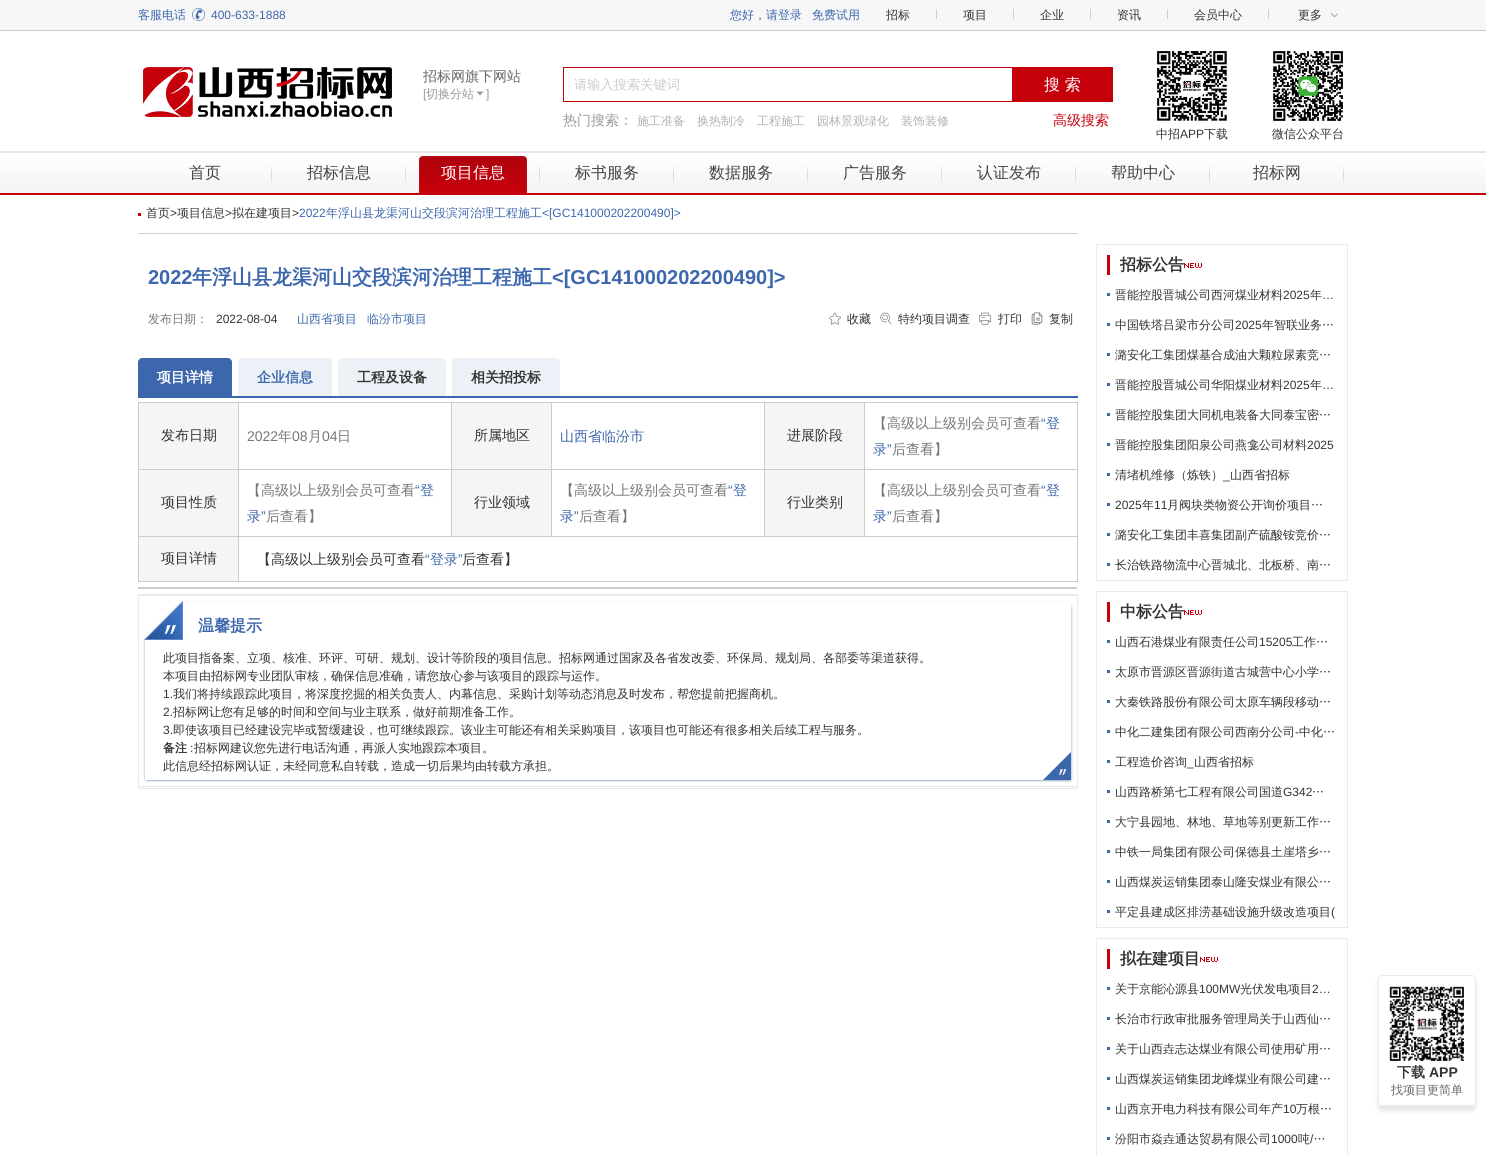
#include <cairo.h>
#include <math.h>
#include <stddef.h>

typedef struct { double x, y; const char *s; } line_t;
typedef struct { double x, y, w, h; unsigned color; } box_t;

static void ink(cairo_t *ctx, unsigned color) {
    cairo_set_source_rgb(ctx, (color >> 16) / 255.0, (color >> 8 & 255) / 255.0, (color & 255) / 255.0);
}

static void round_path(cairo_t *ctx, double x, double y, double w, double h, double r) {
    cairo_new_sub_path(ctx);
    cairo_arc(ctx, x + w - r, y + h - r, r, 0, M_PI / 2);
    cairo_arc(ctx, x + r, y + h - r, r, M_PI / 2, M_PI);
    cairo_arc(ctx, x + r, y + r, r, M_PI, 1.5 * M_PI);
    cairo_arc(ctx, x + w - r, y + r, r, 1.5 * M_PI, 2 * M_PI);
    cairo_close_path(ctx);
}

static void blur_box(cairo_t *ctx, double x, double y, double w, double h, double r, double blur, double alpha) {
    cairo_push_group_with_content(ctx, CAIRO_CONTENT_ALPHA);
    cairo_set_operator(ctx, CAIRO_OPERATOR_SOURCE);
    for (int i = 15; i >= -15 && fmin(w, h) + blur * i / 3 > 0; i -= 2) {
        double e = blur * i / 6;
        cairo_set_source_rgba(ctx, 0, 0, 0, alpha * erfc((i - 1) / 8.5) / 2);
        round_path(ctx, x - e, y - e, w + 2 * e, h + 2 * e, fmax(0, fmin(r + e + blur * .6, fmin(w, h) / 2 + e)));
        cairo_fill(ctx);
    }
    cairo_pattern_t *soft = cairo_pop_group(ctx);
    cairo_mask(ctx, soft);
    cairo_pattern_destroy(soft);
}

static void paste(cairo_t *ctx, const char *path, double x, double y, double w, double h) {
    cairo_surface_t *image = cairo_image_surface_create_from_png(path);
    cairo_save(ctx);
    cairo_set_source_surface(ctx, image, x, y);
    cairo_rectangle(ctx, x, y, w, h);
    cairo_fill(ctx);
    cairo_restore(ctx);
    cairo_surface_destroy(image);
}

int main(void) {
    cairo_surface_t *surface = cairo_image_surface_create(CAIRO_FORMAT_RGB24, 1486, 1156);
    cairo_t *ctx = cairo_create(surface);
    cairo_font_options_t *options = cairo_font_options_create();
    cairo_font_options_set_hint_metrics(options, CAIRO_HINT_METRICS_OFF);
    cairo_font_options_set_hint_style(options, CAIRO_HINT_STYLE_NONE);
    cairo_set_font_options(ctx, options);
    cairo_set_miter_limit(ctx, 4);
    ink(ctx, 0xFFFFFF);
    cairo_paint(ctx);
    ink(ctx, 0xF7F7F7);
    cairo_rectangle(ctx, 0, 0, 1486, 30);
    cairo_fill(ctx);
    ink(ctx, 0xCCCCCC);
    cairo_rectangle(ctx, 0, 30, 1486, 1);
    cairo_fill(ctx);
    cairo_select_font_face(ctx, "WenQuanYi Zen Hei Medium", CAIRO_FONT_SLANT_NORMAL, CAIRO_FONT_WEIGHT_NORMAL);
    cairo_set_font_size(ctx, 12);
    ink(ctx, 0x3D67AD);
    cairo_move_to(ctx, 138, 19);
    cairo_show_text(ctx, "客服电话");
    paste(ctx, "media/1.png", 192, 8, 13, 13);
    cairo_select_font_face(ctx, "Liberation Sans", CAIRO_FONT_SLANT_NORMAL, CAIRO_FONT_WEIGHT_NORMAL);
    cairo_move_to(ctx, 211, 19);
    cairo_show_text(ctx, "400-633-1888");
    cairo_select_font_face(ctx, "WenQuanYi Zen Hei Medium", CAIRO_FONT_SLANT_NORMAL, CAIRO_FONT_WEIGHT_NORMAL);
    cairo_move_to(ctx, 730, 19);
    cairo_show_text(ctx, "您好，请登录");
    cairo_move_to(ctx, 812, 19);
    cairo_show_text(ctx, "免费试用");
    ink(ctx, 0x333333);
    cairo_move_to(ctx, 886, 19);
    cairo_show_text(ctx, "招标");
    ink(ctx, 0xCCCCCC);
    cairo_rectangle(ctx, 936, 9, 1, 10);
    cairo_fill(ctx);
    ink(ctx, 0x333333);
    cairo_move_to(ctx, 963, 19);
    cairo_show_text(ctx, "项目");
    ink(ctx, 0xCCCCCC);
    cairo_rectangle(ctx, 1013, 9, 1, 10);
    cairo_fill(ctx);
    ink(ctx, 0x333333);
    cairo_move_to(ctx, 1040, 19);
    cairo_show_text(ctx, "企业");
    ink(ctx, 0xCCCCCC);
    cairo_rectangle(ctx, 1090, 9, 1, 10);
    cairo_fill(ctx);
    ink(ctx, 0x333333);
    cairo_move_to(ctx, 1117, 19);
    cairo_show_text(ctx, "资讯");
    ink(ctx, 0xCCCCCC);
    cairo_rectangle(ctx, 1167, 9, 1, 10);
    cairo_fill(ctx);
    ink(ctx, 0x333333);
    cairo_move_to(ctx, 1194, 19);
    cairo_show_text(ctx, "会员中心");
    ink(ctx, 0xCCCCCC);
    cairo_rectangle(ctx, 1268, 9, 1, 10);
    cairo_fill(ctx);
    ink(ctx, 0x333333);
    cairo_move_to(ctx, 1298, 19);
    cairo_show_text(ctx, "更多");
    paste(ctx, "media/2.png", 1331, 13, 7, 5);
    paste(ctx, "media/3.png", 143, 67, 249, 50);
    cairo_set_font_size(ctx, 14);
    ink(ctx, 0x666666);
    cairo_move_to(ctx, 423, 81);
    cairo_show_text(ctx, "招标网旗下网站");
    cairo_select_font_face(ctx, "Liberation Sans", CAIRO_FONT_SLANT_NORMAL, CAIRO_FONT_WEIGHT_NORMAL);
    cairo_set_font_size(ctx, 12);
    ink(ctx, 0x999999);
    cairo_move_to(ctx, 423, 98);
    cairo_show_text(ctx, "[");
    cairo_select_font_face(ctx, "WenQuanYi Zen Hei Medium", CAIRO_FONT_SLANT_NORMAL, CAIRO_FONT_WEIGHT_NORMAL);
    cairo_move_to(ctx, 426, 98);
    cairo_show_text(ctx, "切换分站");
    cairo_new_path(ctx);
    cairo_move_to(ctx, 480, 95.5);
    cairo_line_to(ctx, 476.5, 91.5);
    cairo_line_to(ctx, 483.5, 91.5);
    cairo_close_path(ctx);
    cairo_fill(ctx);
    cairo_select_font_face(ctx, "Liberation Sans", CAIRO_FONT_SLANT_NORMAL, CAIRO_FONT_WEIGHT_NORMAL);
    cairo_move_to(ctx, 486, 98);
    cairo_show_text(ctx, "]");
    cairo_rectangle(ctx, 563.5, 67.5, 549, 34);
    ink(ctx, 0xC6000B);
    cairo_set_line_width(ctx, 1);
    cairo_stroke(ctx);
    cairo_select_font_face(ctx, "WenQuanYi Zen Hei Medium", CAIRO_FONT_SLANT_NORMAL, CAIRO_FONT_WEIGHT_NORMAL);
    cairo_set_font_size(ctx, 13.25);
    ink(ctx, 0xCCCCCC);
    cairo_move_to(ctx, 574, 89);
    cairo_show_text(ctx, "请输入搜索关键词");
    ink(ctx, 0xC6000B);
    cairo_rectangle(ctx, 1012, 68, 100, 33);
    cairo_fill(ctx);
    cairo_set_font_size(ctx, 16);
    ink(ctx, 0xFFFFFF);
    cairo_move_to(ctx, 1044, 90);
    cairo_show_text(ctx, "搜 索");
    cairo_set_font_size(ctx, 14);
    ink(ctx, 0x999999);
    cairo_move_to(ctx, 563, 125);
    cairo_show_text(ctx, "热门搜索：");
    cairo_set_font_size(ctx, 12);
    ink(ctx, 0xB2B2B2);
    {
        static const line_t items[] = {
            {637, 125, "施工准备"},
            {697, 125, "换热制冷"},
            {757, 125, "工程施工"},
            {817, 125, "园林景观绿化"},
            {901, 125, "装饰装修"},
        };
        for (size_t i = 0; i < sizeof items / sizeof *items; i++) {
            cairo_move_to(ctx, items[i].x, items[i].y);
            cairo_show_text(ctx, items[i].s);
        }
    }
    cairo_set_font_size(ctx, 14);
    ink(ctx, 0xC6000B);
    cairo_move_to(ctx, 1053, 125);
    cairo_show_text(ctx, "高级搜索");
    paste(ctx, "media/4.png", 1156, 50, 71, 71);
    cairo_set_font_size(ctx, 12);
    ink(ctx, 0x333333);
    cairo_move_to(ctx, 1156, 138);
    cairo_show_text(ctx, "中招");
    cairo_select_font_face(ctx, "Liberation Sans", CAIRO_FONT_SLANT_NORMAL, CAIRO_FONT_WEIGHT_NORMAL);
    cairo_move_to(ctx, 1180, 138);
    cairo_show_text(ctx, "APP");
    cairo_select_font_face(ctx, "WenQuanYi Zen Hei Medium", CAIRO_FONT_SLANT_NORMAL, CAIRO_FONT_WEIGHT_NORMAL);
    cairo_move_to(ctx, 1204, 138);
    cairo_show_text(ctx, "下载");
    paste(ctx, "media/5.png", 1273, 51, 70, 70);
    cairo_move_to(ctx, 1272, 138);
    cairo_show_text(ctx, "微信公众平台");
    paste(ctx, "media/6.png", 0, 153, 1486, 39);
    ink(ctx, 0xE6E6E6);
    cairo_rectangle(ctx, 0, 151, 1486, 2);
    cairo_fill(ctx);
    paste(ctx, "media/7.png", 0, 153, 1486, 40);
    ink(ctx, 0xC6000B);
    cairo_rectangle(ctx, 0, 193, 1486, 2);
    cairo_fill(ctx);
    cairo_set_font_size(ctx, 16);
    ink(ctx, 0x444444);
    cairo_move_to(ctx, 189, 178);
    cairo_show_text(ctx, "首页");
    paste(ctx, "media/8.png", 271, 165, 1, 19);
    cairo_move_to(ctx, 307, 178);
    cairo_show_text(ctx, "招标信息");
    paste(ctx, "media/9.png", 405, 165, 1, 19);
    paste(ctx, "media/10.png", 419, 156, 108, 37);
    ink(ctx, 0xFFFFFF);
    cairo_move_to(ctx, 441, 178);
    cairo_show_text(ctx, "项目信息");
    paste(ctx, "media/9.png", 539, 165, 1, 19);
    ink(ctx, 0x444444);
    cairo_move_to(ctx, 575, 178);
    cairo_show_text(ctx, "标书服务");
    paste(ctx, "media/8.png", 673, 165, 1, 19);
    cairo_move_to(ctx, 709, 178);
    cairo_show_text(ctx, "数据服务");
    paste(ctx, "media/8.png", 807, 165, 1, 19);
    cairo_move_to(ctx, 843, 178);
    cairo_show_text(ctx, "广告服务");
    paste(ctx, "media/8.png", 941, 165, 1, 19);
    cairo_move_to(ctx, 977, 178);
    cairo_show_text(ctx, "认证发布");
    paste(ctx, "media/9.png", 1075, 165, 1, 19);
    cairo_move_to(ctx, 1111, 178);
    cairo_show_text(ctx, "帮助中心");
    paste(ctx, "media/9.png", 1209, 165, 1, 19);
    cairo_move_to(ctx, 1253, 178);
    cairo_show_text(ctx, "招标网");
    paste(ctx, "media/8.png", 1343, 165, 1, 19);
    ink(ctx, 0xD1D1D1);
    cairo_rectangle(ctx, 138, 233, 940, 1);
    cairo_fill(ctx);
    ink(ctx, 0xC6000B);
    cairo_rectangle(ctx, 138, 213, 3, 3);
    cairo_fill(ctx);
    cairo_set_font_size(ctx, 12);
    ink(ctx, 0x333333);
    cairo_move_to(ctx, 146, 217);
    cairo_show_text(ctx, "首页");
    cairo_select_font_face(ctx, "Liberation Sans", CAIRO_FONT_SLANT_NORMAL, CAIRO_FONT_WEIGHT_NORMAL);
    cairo_move_to(ctx, 170, 217);
    cairo_show_text(ctx, ">");
    cairo_select_font_face(ctx, "WenQuanYi Zen Hei Medium", CAIRO_FONT_SLANT_NORMAL, CAIRO_FONT_WEIGHT_NORMAL);
    cairo_move_to(ctx, 177, 217);
    cairo_show_text(ctx, "项目信息");
    cairo_select_font_face(ctx, "Liberation Sans", CAIRO_FONT_SLANT_NORMAL, CAIRO_FONT_WEIGHT_NORMAL);
    cairo_move_to(ctx, 225, 217);
    cairo_show_text(ctx, ">");
    cairo_select_font_face(ctx, "WenQuanYi Zen Hei Medium", CAIRO_FONT_SLANT_NORMAL, CAIRO_FONT_WEIGHT_NORMAL);
    cairo_move_to(ctx, 232, 217);
    cairo_show_text(ctx, "拟在建项目");
    cairo_select_font_face(ctx, "Liberation Sans", CAIRO_FONT_SLANT_NORMAL, CAIRO_FONT_WEIGHT_NORMAL);
    cairo_move_to(ctx, 292, 217);
    cairo_show_text(ctx, ">");
    ink(ctx, 0x3D67AD);
    cairo_move_to(ctx, 299, 217);
    cairo_show_text(ctx, "2022");
    cairo_select_font_face(ctx, "WenQuanYi Zen Hei Medium", CAIRO_FONT_SLANT_NORMAL, CAIRO_FONT_WEIGHT_NORMAL);
    cairo_move_to(ctx, 326, 217);
    cairo_show_text(ctx, "年浮山县龙渠河山交段滨河治理工程施工");
    cairo_select_font_face(ctx, "Liberation Sans", CAIRO_FONT_SLANT_NORMAL, CAIRO_FONT_WEIGHT_NORMAL);
    cairo_move_to(ctx, 542, 217);
    cairo_show_text(ctx, "<[GC141000202200490]>");
    cairo_select_font_face(ctx, "Liberation Sans", CAIRO_FONT_SLANT_NORMAL, CAIRO_FONT_WEIGHT_BOLD);
    cairo_set_font_size(ctx, 20);
    cairo_move_to(ctx, 148, 284);
    cairo_show_text(ctx, "2022");
    cairo_select_font_face(ctx, "WenQuanYi Zen Hei", CAIRO_FONT_SLANT_NORMAL, CAIRO_FONT_WEIGHT_BOLD);
    cairo_move_to(ctx, 192, 284);
    cairo_show_text(ctx, "年浮山县龙渠河山交段滨河治理工程施工");
    cairo_select_font_face(ctx, "Liberation Sans", CAIRO_FONT_SLANT_NORMAL, CAIRO_FONT_WEIGHT_BOLD);
    cairo_move_to(ctx, 552, 284);
    cairo_show_text(ctx, "<[GC141000202200490]>");
    cairo_select_font_face(ctx, "WenQuanYi Zen Hei Medium", CAIRO_FONT_SLANT_NORMAL, CAIRO_FONT_WEIGHT_NORMAL);
    cairo_set_font_size(ctx, 12);
    ink(ctx, 0x777777);
    cairo_move_to(ctx, 148, 323);
    cairo_show_text(ctx, "发布日期：");
    cairo_select_font_face(ctx, "Liberation Sans", CAIRO_FONT_SLANT_NORMAL, CAIRO_FONT_WEIGHT_NORMAL);
    ink(ctx, 0x333333);
    cairo_move_to(ctx, 216, 323);
    cairo_show_text(ctx, "2022-08-04");
    cairo_select_font_face(ctx, "WenQuanYi Zen Hei Medium", CAIRO_FONT_SLANT_NORMAL, CAIRO_FONT_WEIGHT_NORMAL);
    ink(ctx, 0x3D67AD);
    cairo_move_to(ctx, 297, 323);
    cairo_show_text(ctx, "山西省项目");
    cairo_move_to(ctx, 367, 323);
    cairo_show_text(ctx, "临汾市项目");
    paste(ctx, "media/11.png", 829, 312, 12, 13);
    ink(ctx, 0x333333);
    cairo_move_to(ctx, 847, 323);
    cairo_show_text(ctx, "收藏");
    paste(ctx, "media/12.png", 880, 312, 12, 13);
    cairo_move_to(ctx, 898, 323);
    cairo_show_text(ctx, "特约项目调查");
    paste(ctx, "media/13.png", 979, 312, 12, 13);
    cairo_move_to(ctx, 998, 323);
    cairo_show_text(ctx, "打印");
    paste(ctx, "media/14.png", 1031, 312, 12, 13);
    cairo_move_to(ctx, 1049, 323);
    cairo_show_text(ctx, "复制");
    ink(ctx, 0x3D67AD);
    cairo_rectangle(ctx, 138, 396, 940, 2);
    cairo_fill(ctx);
    cairo_new_path(ctx);
    cairo_move_to(ctx, 142, 358);
    cairo_line_to(ctx, 228, 358);
    cairo_curve_to(ctx, 230, 358, 232, 360, 232, 362);
    cairo_line_to(ctx, 232, 396);
    cairo_line_to(ctx, 138, 396);
    cairo_line_to(ctx, 138, 362);
    cairo_curve_to(ctx, 138, 360, 140, 358, 142, 358);
    cairo_close_path(ctx);
    cairo_fill(ctx);
    cairo_select_font_face(ctx, "WenQuanYi Zen Hei", CAIRO_FONT_SLANT_NORMAL, CAIRO_FONT_WEIGHT_BOLD);
    cairo_set_font_size(ctx, 14);
    ink(ctx, 0xFFFFFF);
    cairo_move_to(ctx, 157, 382);
    cairo_show_text(ctx, "项目详情");
    ink(ctx, 0xECF1F7);
    cairo_new_path(ctx);
    cairo_move_to(ctx, 242, 358);
    cairo_line_to(ctx, 328, 358);
    cairo_curve_to(ctx, 330, 358, 332, 360, 332, 362);
    cairo_line_to(ctx, 332, 396);
    cairo_line_to(ctx, 238, 396);
    cairo_line_to(ctx, 238, 362);
    cairo_curve_to(ctx, 238, 360, 240, 358, 242, 358);
    cairo_close_path(ctx);
    cairo_fill(ctx);
    ink(ctx, 0x3D67AD);
    cairo_move_to(ctx, 257, 382);
    cairo_show_text(ctx, "企业信息");
    ink(ctx, 0xECF1F7);
    cairo_new_path(ctx);
    cairo_move_to(ctx, 342, 358);
    cairo_line_to(ctx, 442, 358);
    cairo_curve_to(ctx, 444, 358, 446, 360, 446, 362);
    cairo_line_to(ctx, 446, 396);
    cairo_line_to(ctx, 338, 396);
    cairo_line_to(ctx, 338, 362);
    cairo_curve_to(ctx, 338, 360, 340, 358, 342, 358);
    cairo_close_path(ctx);
    cairo_fill(ctx);
    ink(ctx, 0x333333);
    cairo_move_to(ctx, 357, 382);
    cairo_show_text(ctx, "工程及设备");
    ink(ctx, 0xECF1F7);
    cairo_new_path(ctx);
    cairo_move_to(ctx, 456, 358);
    cairo_line_to(ctx, 556, 358);
    cairo_curve_to(ctx, 558, 358, 560, 360, 560, 362);
    cairo_line_to(ctx, 560, 396);
    cairo_line_to(ctx, 452, 396);
    cairo_line_to(ctx, 452, 362);
    cairo_curve_to(ctx, 452, 360, 454, 358, 456, 358);
    cairo_close_path(ctx);
    cairo_fill(ctx);
    ink(ctx, 0x333333);
    cairo_move_to(ctx, 471, 382);
    cairo_show_text(ctx, "相关招投标");
    {
        static const box_t items[] = {
            {138, 402, 940, 1, 0xCCCCCC},
            {1077, 402, 1, 180, 0xCCCCCC},
            {138, 581, 940, 1, 0xCCCCCC},
            {138, 402, 1, 180, 0xCCCCCC},
            {139, 403, 99, 66, 0xF5F5F5},
        };
        for (size_t i = 0; i < sizeof items / sizeof *items; i++) {
            ink(ctx, items[i].color);
            cairo_rectangle(ctx, items[i].x, items[i].y, items[i].w, items[i].h);
            cairo_fill(ctx);
        }
    }
    cairo_select_font_face(ctx, "WenQuanYi Zen Hei Medium", CAIRO_FONT_SLANT_NORMAL, CAIRO_FONT_WEIGHT_NORMAL);
    ink(ctx, 0x333333);
    cairo_move_to(ctx, 161, 440);
    cairo_show_text(ctx, "发布日期");
    {
        static const box_t items[] = {
            {864, 469, 214, 1, 0xCCCCCC},
            {238, 536, 840, 1, 0xCCCCCC},
            {864, 469, 1, 68, 0xCCCCCC},
            {764, 469, 101, 1, 0xCCCCCC},
            {764, 469, 1, 68, 0xCCCCCC},
            {551, 469, 214, 1, 0xCCCCCC},
            {551, 469, 1, 68, 0xCCCCCC},
            {451, 469, 101, 1, 0xCCCCCC},
            {451, 469, 1, 68, 0xCCCCCC},
            {238, 469, 214, 1, 0xCCCCCC},
            {238, 536, 1, 46, 0xCCCCCC},
            {138, 536, 101, 1, 0xCCCCCC},
            {238, 469, 1, 68, 0xCCCCCC},
            {138, 469, 101, 1, 0xCCCCCC},
            {238, 402, 1, 68, 0xCCCCCC},
        };
        for (size_t i = 0; i < sizeof items / sizeof *items; i++) {
            ink(ctx, items[i].color);
            cairo_rectangle(ctx, items[i].x, items[i].y, items[i].w, items[i].h);
            cairo_fill(ctx);
        }
    }
    cairo_select_font_face(ctx, "Liberation Sans", CAIRO_FONT_SLANT_NORMAL, CAIRO_FONT_WEIGHT_NORMAL);
    ink(ctx, 0x777777);
    cairo_move_to(ctx, 247, 441);
    cairo_show_text(ctx, "2022");
    cairo_select_font_face(ctx, "WenQuanYi Zen Hei Medium", CAIRO_FONT_SLANT_NORMAL, CAIRO_FONT_WEIGHT_NORMAL);
    cairo_move_to(ctx, 278, 441);
    cairo_show_text(ctx, "年");
    cairo_select_font_face(ctx, "Liberation Sans", CAIRO_FONT_SLANT_NORMAL, CAIRO_FONT_WEIGHT_NORMAL);
    cairo_move_to(ctx, 292, 441);
    cairo_show_text(ctx, "08");
    cairo_select_font_face(ctx, "WenQuanYi Zen Hei Medium", CAIRO_FONT_SLANT_NORMAL, CAIRO_FONT_WEIGHT_NORMAL);
    cairo_move_to(ctx, 308, 441);
    cairo_show_text(ctx, "月");
    cairo_select_font_face(ctx, "Liberation Sans", CAIRO_FONT_SLANT_NORMAL, CAIRO_FONT_WEIGHT_NORMAL);
    cairo_move_to(ctx, 322, 441);
    cairo_show_text(ctx, "04");
    cairo_select_font_face(ctx, "WenQuanYi Zen Hei Medium", CAIRO_FONT_SLANT_NORMAL, CAIRO_FONT_WEIGHT_NORMAL);
    cairo_move_to(ctx, 337, 441);
    cairo_show_text(ctx, "日");
    ink(ctx, 0xF5F5F5);
    cairo_rectangle(ctx, 452, 403, 99, 66);
    cairo_fill(ctx);
    ink(ctx, 0xCCCCCC);
    cairo_rectangle(ctx, 451, 402, 1, 68);
    cairo_fill(ctx);
    ink(ctx, 0x333333);
    cairo_move_to(ctx, 474, 440);
    cairo_show_text(ctx, "所属地区");
    ink(ctx, 0xCCCCCC);
    cairo_rectangle(ctx, 551, 402, 1, 68);
    cairo_fill(ctx);
    ink(ctx, 0x3D67AD);
    cairo_move_to(ctx, 560, 441);
    cairo_show_text(ctx, "山西省临汾市");
    ink(ctx, 0xF5F5F5);
    cairo_rectangle(ctx, 765, 403, 99, 66);
    cairo_fill(ctx);
    ink(ctx, 0xCCCCCC);
    cairo_rectangle(ctx, 764, 402, 1, 68);
    cairo_fill(ctx);
    ink(ctx, 0x333333);
    cairo_move_to(ctx, 787, 440);
    cairo_show_text(ctx, "进展阶段");
    ink(ctx, 0xCCCCCC);
    cairo_rectangle(ctx, 864, 402, 1, 68);
    cairo_fill(ctx);
    ink(ctx, 0x777777);
    cairo_move_to(ctx, 873, 428);
    cairo_show_text(ctx, "【高级以上级别会员可查看");
    cairo_select_font_face(ctx, "Liberation Sans", CAIRO_FONT_SLANT_NORMAL, CAIRO_FONT_WEIGHT_NORMAL);
    ink(ctx, 0x3D67AD);
    cairo_move_to(ctx, 1041, 428);
    cairo_show_text(ctx, "“");
    cairo_select_font_face(ctx, "WenQuanYi Zen Hei Medium", CAIRO_FONT_SLANT_NORMAL, CAIRO_FONT_WEIGHT_NORMAL);
    cairo_move_to(ctx, 1046, 428);
    cairo_show_text(ctx, "登");
    cairo_move_to(ctx, 873, 454);
    cairo_show_text(ctx, "录");
    cairo_select_font_face(ctx, "Liberation Sans", CAIRO_FONT_SLANT_NORMAL, CAIRO_FONT_WEIGHT_NORMAL);
    cairo_move_to(ctx, 887, 454);
    cairo_show_text(ctx, "”");
    cairo_select_font_face(ctx, "WenQuanYi Zen Hei Medium", CAIRO_FONT_SLANT_NORMAL, CAIRO_FONT_WEIGHT_NORMAL);
    ink(ctx, 0x777777);
    cairo_move_to(ctx, 892, 454);
    cairo_show_text(ctx, "后查看】");
    ink(ctx, 0xF5F5F5);
    cairo_rectangle(ctx, 139, 470, 99, 66);
    cairo_fill(ctx);
    ink(ctx, 0x333333);
    cairo_move_to(ctx, 161, 507);
    cairo_show_text(ctx, "项目性质");
    ink(ctx, 0x777777);
    cairo_move_to(ctx, 247, 495);
    cairo_show_text(ctx, "【高级以上级别会员可查看");
    cairo_select_font_face(ctx, "Liberation Sans", CAIRO_FONT_SLANT_NORMAL, CAIRO_FONT_WEIGHT_NORMAL);
    ink(ctx, 0x3D67AD);
    cairo_move_to(ctx, 415, 495);
    cairo_show_text(ctx, "“");
    cairo_select_font_face(ctx, "WenQuanYi Zen Hei Medium", CAIRO_FONT_SLANT_NORMAL, CAIRO_FONT_WEIGHT_NORMAL);
    cairo_move_to(ctx, 420, 495);
    cairo_show_text(ctx, "登");
    cairo_move_to(ctx, 247, 521);
    cairo_show_text(ctx, "录");
    cairo_select_font_face(ctx, "Liberation Sans", CAIRO_FONT_SLANT_NORMAL, CAIRO_FONT_WEIGHT_NORMAL);
    cairo_move_to(ctx, 261, 521);
    cairo_show_text(ctx, "”");
    cairo_select_font_face(ctx, "WenQuanYi Zen Hei Medium", CAIRO_FONT_SLANT_NORMAL, CAIRO_FONT_WEIGHT_NORMAL);
    ink(ctx, 0x777777);
    cairo_move_to(ctx, 266, 521);
    cairo_show_text(ctx, "后查看】");
    ink(ctx, 0xF5F5F5);
    cairo_rectangle(ctx, 452, 470, 99, 66);
    cairo_fill(ctx);
    ink(ctx, 0x333333);
    cairo_move_to(ctx, 474, 507);
    cairo_show_text(ctx, "行业领域");
    ink(ctx, 0x777777);
    cairo_move_to(ctx, 560, 495);
    cairo_show_text(ctx, "【高级以上级别会员可查看");
    cairo_select_font_face(ctx, "Liberation Sans", CAIRO_FONT_SLANT_NORMAL, CAIRO_FONT_WEIGHT_NORMAL);
    ink(ctx, 0x3D67AD);
    cairo_move_to(ctx, 728, 495);
    cairo_show_text(ctx, "“");
    cairo_select_font_face(ctx, "WenQuanYi Zen Hei Medium", CAIRO_FONT_SLANT_NORMAL, CAIRO_FONT_WEIGHT_NORMAL);
    cairo_move_to(ctx, 733, 495);
    cairo_show_text(ctx, "登");
    cairo_move_to(ctx, 560, 521);
    cairo_show_text(ctx, "录");
    cairo_select_font_face(ctx, "Liberation Sans", CAIRO_FONT_SLANT_NORMAL, CAIRO_FONT_WEIGHT_NORMAL);
    cairo_move_to(ctx, 574, 521);
    cairo_show_text(ctx, "”");
    cairo_select_font_face(ctx, "WenQuanYi Zen Hei Medium", CAIRO_FONT_SLANT_NORMAL, CAIRO_FONT_WEIGHT_NORMAL);
    ink(ctx, 0x777777);
    cairo_move_to(ctx, 579, 521);
    cairo_show_text(ctx, "后查看】");
    ink(ctx, 0xF5F5F5);
    cairo_rectangle(ctx, 765, 470, 99, 66);
    cairo_fill(ctx);
    ink(ctx, 0x333333);
    cairo_move_to(ctx, 787, 507);
    cairo_show_text(ctx, "行业类别");
    ink(ctx, 0x777777);
    cairo_move_to(ctx, 873, 495);
    cairo_show_text(ctx, "【高级以上级别会员可查看");
    cairo_select_font_face(ctx, "Liberation Sans", CAIRO_FONT_SLANT_NORMAL, CAIRO_FONT_WEIGHT_NORMAL);
    ink(ctx, 0x3D67AD);
    cairo_move_to(ctx, 1041, 495);
    cairo_show_text(ctx, "“");
    cairo_select_font_face(ctx, "WenQuanYi Zen Hei Medium", CAIRO_FONT_SLANT_NORMAL, CAIRO_FONT_WEIGHT_NORMAL);
    cairo_move_to(ctx, 1046, 495);
    cairo_show_text(ctx, "登");
    cairo_move_to(ctx, 873, 521);
    cairo_show_text(ctx, "录");
    cairo_select_font_face(ctx, "Liberation Sans", CAIRO_FONT_SLANT_NORMAL, CAIRO_FONT_WEIGHT_NORMAL);
    cairo_move_to(ctx, 887, 521);
    cairo_show_text(ctx, "”");
    cairo_select_font_face(ctx, "WenQuanYi Zen Hei Medium", CAIRO_FONT_SLANT_NORMAL, CAIRO_FONT_WEIGHT_NORMAL);
    ink(ctx, 0x777777);
    cairo_move_to(ctx, 892, 521);
    cairo_show_text(ctx, "后查看】");
    ink(ctx, 0xF5F5F5);
    cairo_rectangle(ctx, 139, 537, 99, 44);
    cairo_fill(ctx);
    ink(ctx, 0x333333);
    cairo_move_to(ctx, 161, 563);
    cairo_show_text(ctx, "项目详情");
    cairo_move_to(ctx, 257, 564);
    cairo_show_text(ctx, "【高级以上级别会员可查看");
    cairo_select_font_face(ctx, "Liberation Sans", CAIRO_FONT_SLANT_NORMAL, CAIRO_FONT_WEIGHT_NORMAL);
    ink(ctx, 0x3D67AD);
    cairo_move_to(ctx, 425, 564);
    cairo_show_text(ctx, "“");
    cairo_select_font_face(ctx, "WenQuanYi Zen Hei Medium", CAIRO_FONT_SLANT_NORMAL, CAIRO_FONT_WEIGHT_NORMAL);
    cairo_move_to(ctx, 430, 564);
    cairo_show_text(ctx, "登录");
    cairo_select_font_face(ctx, "Liberation Sans", CAIRO_FONT_SLANT_NORMAL, CAIRO_FONT_WEIGHT_NORMAL);
    cairo_move_to(ctx, 458, 564);
    cairo_show_text(ctx, "”");
    cairo_select_font_face(ctx, "WenQuanYi Zen Hei Medium", CAIRO_FONT_SLANT_NORMAL, CAIRO_FONT_WEIGHT_NORMAL);
    ink(ctx, 0x333333);
    cairo_move_to(ctx, 462, 564);
    cairo_show_text(ctx, "后查看】");
    ink(ctx, 0xCCCCCC);
    cairo_rectangle(ctx, 138, 587, 939, 2);
    cairo_fill(ctx);
    paste(ctx, "media/15.png", 139, 595, 938, 192);
    cairo_rectangle(ctx, 138.5, 594.5, 939, 194);
    ink(ctx, 0xE6EDEB);
    cairo_stroke(ctx);
    cairo_select_font_face(ctx, "WenQuanYi Zen Hei", CAIRO_FONT_SLANT_NORMAL, CAIRO_FONT_WEIGHT_BOLD);
    cairo_set_font_size(ctx, 16);
    ink(ctx, 0x3D67AD);
    cairo_move_to(ctx, 198, 631);
    cairo_show_text(ctx, "温馨提示");
    cairo_select_font_face(ctx, "WenQuanYi Zen Hei Medium", CAIRO_FONT_SLANT_NORMAL, CAIRO_FONT_WEIGHT_NORMAL);
    cairo_set_font_size(ctx, 12);
    ink(ctx, 0x333333);
    cairo_move_to(ctx, 163, 662);
    cairo_show_text(ctx, "此项目指备案、立项、核准、环评、可研、规划、设计等阶段的项目信息。招标网通过国家及各省发改委、环保局、规划局、各部委等渠道获得。");
    cairo_move_to(ctx, 163, 680);
    cairo_show_text(ctx, "本项目由招标网专业团队审核，确保信息准确，请您放心参与该项目的跟踪与运作。");
    cairo_select_font_face(ctx, "Liberation Sans", CAIRO_FONT_SLANT_NORMAL, CAIRO_FONT_WEIGHT_NORMAL);
    cairo_move_to(ctx, 163, 698);
    cairo_show_text(ctx, "1.");
    cairo_select_font_face(ctx, "WenQuanYi Zen Hei Medium", CAIRO_FONT_SLANT_NORMAL, CAIRO_FONT_WEIGHT_NORMAL);
    cairo_move_to(ctx, 173, 698);
    cairo_show_text(ctx, "我们将持续跟踪此项目，将深度挖掘的相关负责人、内幕信息、采购计划等动态消息及时发布，帮您提前把握商机。");
    cairo_select_font_face(ctx, "Liberation Sans", CAIRO_FONT_SLANT_NORMAL, CAIRO_FONT_WEIGHT_NORMAL);
    cairo_move_to(ctx, 163, 716);
    cairo_show_text(ctx, "2.");
    cairo_select_font_face(ctx, "WenQuanYi Zen Hei Medium", CAIRO_FONT_SLANT_NORMAL, CAIRO_FONT_WEIGHT_NORMAL);
    cairo_move_to(ctx, 173, 716);
    cairo_show_text(ctx, "招标网让您有足够的时间和空间与业主联系，做好前期准备工作。");
    cairo_select_font_face(ctx, "Liberation Sans", CAIRO_FONT_SLANT_NORMAL, CAIRO_FONT_WEIGHT_NORMAL);
    cairo_move_to(ctx, 163, 734);
    cairo_show_text(ctx, "3.");
    cairo_select_font_face(ctx, "WenQuanYi Zen Hei Medium", CAIRO_FONT_SLANT_NORMAL, CAIRO_FONT_WEIGHT_NORMAL);
    cairo_move_to(ctx, 173, 734);
    cairo_show_text(ctx, "即使该项目已经建设完毕或暂缓建设，也可继续跟踪。该业主可能还有相关采购项目，该项目也可能还有很多相关后续工程与服务。");
    cairo_select_font_face(ctx, "WenQuanYi Zen Hei", CAIRO_FONT_SLANT_NORMAL, CAIRO_FONT_WEIGHT_BOLD);
    cairo_move_to(ctx, 163, 752);
    cairo_show_text(ctx, "备注");
    cairo_select_font_face(ctx, "Liberation Sans", CAIRO_FONT_SLANT_NORMAL, CAIRO_FONT_WEIGHT_NORMAL);
    cairo_move_to(ctx, 190, 752);
    cairo_show_text(ctx, ":");
    cairo_select_font_face(ctx, "WenQuanYi Zen Hei Medium", CAIRO_FONT_SLANT_NORMAL, CAIRO_FONT_WEIGHT_NORMAL);
    cairo_move_to(ctx, 194, 752);
    cairo_show_text(ctx, "招标网建议您先进行电话沟通，再派人实地跟踪本项目。");
    cairo_move_to(ctx, 163, 770);
    cairo_show_text(ctx, "此信息经招标网认证，未经同意私自转载，造成一切后果均由转载方承担。");
    cairo_rectangle(ctx, 1096.5, 244.5, 251, 336);
    ink(ctx, 0xE6EDEB);
    cairo_stroke(ctx);
    ink(ctx, 0xC6000B);
    cairo_rectangle(ctx, 1107, 255, 3, 20);
    cairo_fill(ctx);
    cairo_select_font_face(ctx, "WenQuanYi Zen Hei", CAIRO_FONT_SLANT_NORMAL, CAIRO_FONT_WEIGHT_BOLD);
    cairo_set_font_size(ctx, 16);
    ink(ctx, 0x333333);
    cairo_move_to(ctx, 1120, 270);
    cairo_show_text(ctx, "招标公告");
    paste(ctx, "media/16.png", 1184, 263, 18, 5);
    ink(ctx, 0x3D67AD);
    cairo_rectangle(ctx, 1107, 293, 3, 3);
    cairo_fill(ctx);
    cairo_select_font_face(ctx, "WenQuanYi Zen Hei Medium", CAIRO_FONT_SLANT_NORMAL, CAIRO_FONT_WEIGHT_NORMAL);
    cairo_set_font_size(ctx, 12);
    ink(ctx, 0x333333);
    cairo_move_to(ctx, 1115, 299);
    cairo_show_text(ctx, "晋能控股晋城公司西河煤业材料");
    cairo_select_font_face(ctx, "Liberation Sans", CAIRO_FONT_SLANT_NORMAL, CAIRO_FONT_WEIGHT_NORMAL);
    cairo_move_to(ctx, 1283, 299);
    cairo_show_text(ctx, "2025");
    cairo_select_font_face(ctx, "WenQuanYi Zen Hei Medium", CAIRO_FONT_SLANT_NORMAL, CAIRO_FONT_WEIGHT_NORMAL);
    cairo_move_to(ctx, 1310, 299);
    cairo_show_text(ctx, "年");
    cairo_select_font_face(ctx, "Liberation Sans", CAIRO_FONT_SLANT_NORMAL, CAIRO_FONT_WEIGHT_NORMAL);
    cairo_move_to(ctx, 1322, 299);
    cairo_show_text(ctx, "…");
    ink(ctx, 0x3D67AD);
    cairo_rectangle(ctx, 1107, 323, 3, 3);
    cairo_fill(ctx);
    cairo_select_font_face(ctx, "WenQuanYi Zen Hei Medium", CAIRO_FONT_SLANT_NORMAL, CAIRO_FONT_WEIGHT_NORMAL);
    ink(ctx, 0x333333);
    cairo_move_to(ctx, 1115, 329);
    cairo_show_text(ctx, "中国铁塔吕梁市分公司");
    cairo_select_font_face(ctx, "Liberation Sans", CAIRO_FONT_SLANT_NORMAL, CAIRO_FONT_WEIGHT_NORMAL);
    cairo_move_to(ctx, 1235, 329);
    cairo_show_text(ctx, "2025");
    cairo_select_font_face(ctx, "WenQuanYi Zen Hei Medium", CAIRO_FONT_SLANT_NORMAL, CAIRO_FONT_WEIGHT_NORMAL);
    cairo_move_to(ctx, 1262, 329);
    cairo_show_text(ctx, "年智联业务…");
    ink(ctx, 0x3D67AD);
    cairo_rectangle(ctx, 1107, 353, 3, 3);
    cairo_fill(ctx);
    ink(ctx, 0x333333);
    cairo_move_to(ctx, 1115, 359);
    cairo_show_text(ctx, "潞安化工集团煤基合成油大颗粒尿素竞…");
    ink(ctx, 0x3D67AD);
    cairo_rectangle(ctx, 1107, 383, 3, 3);
    cairo_fill(ctx);
    ink(ctx, 0x333333);
    cairo_move_to(ctx, 1115, 389);
    cairo_show_text(ctx, "晋能控股晋城公司华阳煤业材料");
    cairo_select_font_face(ctx, "Liberation Sans", CAIRO_FONT_SLANT_NORMAL, CAIRO_FONT_WEIGHT_NORMAL);
    cairo_move_to(ctx, 1283, 389);
    cairo_show_text(ctx, "2025");
    cairo_select_font_face(ctx, "WenQuanYi Zen Hei Medium", CAIRO_FONT_SLANT_NORMAL, CAIRO_FONT_WEIGHT_NORMAL);
    cairo_move_to(ctx, 1310, 389);
    cairo_show_text(ctx, "年");
    cairo_select_font_face(ctx, "Liberation Sans", CAIRO_FONT_SLANT_NORMAL, CAIRO_FONT_WEIGHT_NORMAL);
    cairo_move_to(ctx, 1322, 389);
    cairo_show_text(ctx, "…");
    ink(ctx, 0x3D67AD);
    cairo_rectangle(ctx, 1107, 413, 3, 3);
    cairo_fill(ctx);
    cairo_select_font_face(ctx, "WenQuanYi Zen Hei Medium", CAIRO_FONT_SLANT_NORMAL, CAIRO_FONT_WEIGHT_NORMAL);
    ink(ctx, 0x333333);
    cairo_move_to(ctx, 1115, 419);
    cairo_show_text(ctx, "晋能控股集团大同机电装备大同泰宝密…");
    ink(ctx, 0x3D67AD);
    cairo_rectangle(ctx, 1107, 443, 3, 3);
    cairo_fill(ctx);
    ink(ctx, 0x333333);
    cairo_move_to(ctx, 1115, 449);
    cairo_show_text(ctx, "晋能控股集团阳泉公司燕龛公司材料");
    cairo_select_font_face(ctx, "Liberation Sans", CAIRO_FONT_SLANT_NORMAL, CAIRO_FONT_WEIGHT_NORMAL);
    cairo_move_to(ctx, 1307, 449);
    cairo_show_text(ctx, "2025");
    ink(ctx, 0x3D67AD);
    cairo_rectangle(ctx, 1107, 473, 3, 3);
    cairo_fill(ctx);
    cairo_select_font_face(ctx, "WenQuanYi Zen Hei Medium", CAIRO_FONT_SLANT_NORMAL, CAIRO_FONT_WEIGHT_NORMAL);
    ink(ctx, 0x333333);
    cairo_move_to(ctx, 1115, 479);
    cairo_show_text(ctx, "清堵机维修（炼铁）");
    cairo_select_font_face(ctx, "Liberation Sans", CAIRO_FONT_SLANT_NORMAL, CAIRO_FONT_WEIGHT_NORMAL);
    cairo_move_to(ctx, 1223, 479);
    cairo_show_text(ctx, "_");
    cairo_select_font_face(ctx, "WenQuanYi Zen Hei Medium", CAIRO_FONT_SLANT_NORMAL, CAIRO_FONT_WEIGHT_NORMAL);
    cairo_move_to(ctx, 1230, 479);
    cairo_show_text(ctx, "山西省招标");
    ink(ctx, 0x3D67AD);
    cairo_rectangle(ctx, 1107, 503, 3, 3);
    cairo_fill(ctx);
    cairo_select_font_face(ctx, "Liberation Sans", CAIRO_FONT_SLANT_NORMAL, CAIRO_FONT_WEIGHT_NORMAL);
    ink(ctx, 0x333333);
    cairo_move_to(ctx, 1115, 509);
    cairo_show_text(ctx, "2025");
    cairo_select_font_face(ctx, "WenQuanYi Zen Hei Medium", CAIRO_FONT_SLANT_NORMAL, CAIRO_FONT_WEIGHT_NORMAL);
    cairo_move_to(ctx, 1142, 509);
    cairo_show_text(ctx, "年");
    cairo_select_font_face(ctx, "Liberation Sans", CAIRO_FONT_SLANT_NORMAL, CAIRO_FONT_WEIGHT_NORMAL);
    cairo_move_to(ctx, 1154, 509);
    cairo_show_text(ctx, "11");
    cairo_select_font_face(ctx, "WenQuanYi Zen Hei Medium", CAIRO_FONT_SLANT_NORMAL, CAIRO_FONT_WEIGHT_NORMAL);
    cairo_move_to(ctx, 1167, 509);
    cairo_show_text(ctx, "月阀块类物资公开询价项目…");
    ink(ctx, 0x3D67AD);
    cairo_rectangle(ctx, 1107, 533, 3, 3);
    cairo_fill(ctx);
    ink(ctx, 0x333333);
    cairo_move_to(ctx, 1115, 539);
    cairo_show_text(ctx, "潞安化工集团丰喜集团副产硫酸铵竞价…");
    ink(ctx, 0x3D67AD);
    cairo_rectangle(ctx, 1107, 563, 3, 3);
    cairo_fill(ctx);
    ink(ctx, 0x333333);
    cairo_move_to(ctx, 1115, 569);
    cairo_show_text(ctx, "长治铁路物流中心晋城北、北板桥、南…");
    cairo_rectangle(ctx, 1096.5, 591.5, 251, 336);
    ink(ctx, 0xE6EDEB);
    cairo_stroke(ctx);
    ink(ctx, 0xC6000B);
    cairo_rectangle(ctx, 1107, 602, 3, 20);
    cairo_fill(ctx);
    cairo_select_font_face(ctx, "WenQuanYi Zen Hei", CAIRO_FONT_SLANT_NORMAL, CAIRO_FONT_WEIGHT_BOLD);
    cairo_set_font_size(ctx, 16);
    ink(ctx, 0x333333);
    cairo_move_to(ctx, 1120, 617);
    cairo_show_text(ctx, "中标公告");
    paste(ctx, "media/16.png", 1184, 610, 18, 5);
    ink(ctx, 0x3D67AD);
    cairo_rectangle(ctx, 1107, 640, 3, 3);
    cairo_fill(ctx);
    cairo_select_font_face(ctx, "WenQuanYi Zen Hei Medium", CAIRO_FONT_SLANT_NORMAL, CAIRO_FONT_WEIGHT_NORMAL);
    cairo_set_font_size(ctx, 12);
    ink(ctx, 0x333333);
    cairo_move_to(ctx, 1115, 646);
    cairo_show_text(ctx, "山西石港煤业有限责任公司");
    cairo_select_font_face(ctx, "Liberation Sans", CAIRO_FONT_SLANT_NORMAL, CAIRO_FONT_WEIGHT_NORMAL);
    cairo_move_to(ctx, 1259, 646);
    cairo_show_text(ctx, "15205");
    cairo_select_font_face(ctx, "WenQuanYi Zen Hei Medium", CAIRO_FONT_SLANT_NORMAL, CAIRO_FONT_WEIGHT_NORMAL);
    cairo_move_to(ctx, 1292, 646);
    cairo_show_text(ctx, "工作…");
    ink(ctx, 0x3D67AD);
    cairo_rectangle(ctx, 1107, 670, 3, 3);
    cairo_fill(ctx);
    ink(ctx, 0x333333);
    cairo_move_to(ctx, 1115, 676);
    cairo_show_text(ctx, "太原市晋源区晋源街道古城营中心小学…");
    ink(ctx, 0x3D67AD);
    cairo_rectangle(ctx, 1107, 700, 3, 3);
    cairo_fill(ctx);
    ink(ctx, 0x333333);
    cairo_move_to(ctx, 1115, 706);
    cairo_show_text(ctx, "大秦铁路股份有限公司太原车辆段移动…");
    ink(ctx, 0x3D67AD);
    cairo_rectangle(ctx, 1107, 730, 3, 3);
    cairo_fill(ctx);
    ink(ctx, 0x333333);
    cairo_move_to(ctx, 1115, 736);
    cairo_show_text(ctx, "中化二建集团有限公司西南分公司");
    cairo_select_font_face(ctx, "Liberation Sans", CAIRO_FONT_SLANT_NORMAL, CAIRO_FONT_WEIGHT_NORMAL);
    cairo_move_to(ctx, 1295, 736);
    cairo_show_text(ctx, "-");
    cairo_select_font_face(ctx, "WenQuanYi Zen Hei Medium", CAIRO_FONT_SLANT_NORMAL, CAIRO_FONT_WEIGHT_NORMAL);
    cairo_move_to(ctx, 1299, 736);
    cairo_show_text(ctx, "中化…");
    ink(ctx, 0x3D67AD);
    cairo_rectangle(ctx, 1107, 760, 3, 3);
    cairo_fill(ctx);
    ink(ctx, 0x333333);
    cairo_move_to(ctx, 1115, 766);
    cairo_show_text(ctx, "工程造价咨询");
    cairo_select_font_face(ctx, "Liberation Sans", CAIRO_FONT_SLANT_NORMAL, CAIRO_FONT_WEIGHT_NORMAL);
    cairo_move_to(ctx, 1187, 766);
    cairo_show_text(ctx, "_");
    cairo_select_font_face(ctx, "WenQuanYi Zen Hei Medium", CAIRO_FONT_SLANT_NORMAL, CAIRO_FONT_WEIGHT_NORMAL);
    cairo_move_to(ctx, 1194, 766);
    cairo_show_text(ctx, "山西省招标");
    ink(ctx, 0x3D67AD);
    cairo_rectangle(ctx, 1107, 790, 3, 3);
    cairo_fill(ctx);
    ink(ctx, 0x333333);
    cairo_move_to(ctx, 1115, 796);
    cairo_show_text(ctx, "山西路桥第七工程有限公司国道");
    cairo_select_font_face(ctx, "Liberation Sans", CAIRO_FONT_SLANT_NORMAL, CAIRO_FONT_WEIGHT_NORMAL);
    cairo_move_to(ctx, 1283, 796);
    cairo_show_text(ctx, "G342");
    cairo_select_font_face(ctx, "WenQuanYi Zen Hei Medium", CAIRO_FONT_SLANT_NORMAL, CAIRO_FONT_WEIGHT_NORMAL);
    cairo_move_to(ctx, 1312, 796);
    cairo_show_text(ctx, "…");
    ink(ctx, 0x3D67AD);
    cairo_rectangle(ctx, 1107, 820, 3, 3);
    cairo_fill(ctx);
    ink(ctx, 0x333333);
    cairo_move_to(ctx, 1115, 826);
    cairo_show_text(ctx, "大宁县园地、林地、草地等别更新工作…");
    ink(ctx, 0x3D67AD);
    cairo_rectangle(ctx, 1107, 850, 3, 3);
    cairo_fill(ctx);
    ink(ctx, 0x333333);
    cairo_move_to(ctx, 1115, 856);
    cairo_show_text(ctx, "中铁一局集团有限公司保德县土崖塔乡…");
    ink(ctx, 0x3D67AD);
    cairo_rectangle(ctx, 1107, 880, 3, 3);
    cairo_fill(ctx);
    ink(ctx, 0x333333);
    cairo_move_to(ctx, 1115, 886);
    cairo_show_text(ctx, "山西煤炭运销集团泰山隆安煤业有限公…");
    ink(ctx, 0x3D67AD);
    cairo_rectangle(ctx, 1107, 910, 3, 3);
    cairo_fill(ctx);
    ink(ctx, 0x333333);
    cairo_move_to(ctx, 1115, 916);
    cairo_show_text(ctx, "平定县建成区排涝基础设施升级改造项目");
    cairo_select_font_face(ctx, "Liberation Sans", CAIRO_FONT_SLANT_NORMAL, CAIRO_FONT_WEIGHT_NORMAL);
    cairo_move_to(ctx, 1331, 916);
    cairo_show_text(ctx, "(");
    cairo_rectangle(ctx, 1096.5, 938.5, 251, 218);
    ink(ctx, 0xE6EDEB);
    cairo_stroke(ctx);
    ink(ctx, 0xC6000B);
    cairo_rectangle(ctx, 1107, 949, 3, 20);
    cairo_fill(ctx);
    cairo_select_font_face(ctx, "WenQuanYi Zen Hei", CAIRO_FONT_SLANT_NORMAL, CAIRO_FONT_WEIGHT_BOLD);
    cairo_set_font_size(ctx, 16);
    ink(ctx, 0x333333);
    cairo_move_to(ctx, 1120, 964);
    cairo_show_text(ctx, "拟在建项目");
    paste(ctx, "media/16.png", 1200, 957, 18, 5);
    ink(ctx, 0x3D67AD);
    cairo_rectangle(ctx, 1107, 987, 3, 3);
    cairo_fill(ctx);
    cairo_select_font_face(ctx, "WenQuanYi Zen Hei Medium", CAIRO_FONT_SLANT_NORMAL, CAIRO_FONT_WEIGHT_NORMAL);
    cairo_set_font_size(ctx, 12);
    ink(ctx, 0x333333);
    cairo_move_to(ctx, 1115, 993);
    cairo_show_text(ctx, "关于京能沁源县");
    cairo_select_font_face(ctx, "Liberation Sans", CAIRO_FONT_SLANT_NORMAL, CAIRO_FONT_WEIGHT_NORMAL);
    cairo_move_to(ctx, 1199, 993);
    cairo_show_text(ctx, "100MW");
    cairo_select_font_face(ctx, "WenQuanYi Zen Hei Medium", CAIRO_FONT_SLANT_NORMAL, CAIRO_FONT_WEIGHT_NORMAL);
    cairo_move_to(ctx, 1240, 993);
    cairo_show_text(ctx, "光伏发电项目");
    cairo_select_font_face(ctx, "Liberation Sans", CAIRO_FONT_SLANT_NORMAL, CAIRO_FONT_WEIGHT_NORMAL);
    cairo_move_to(ctx, 1312, 993);
    cairo_show_text(ctx, "2…");
    ink(ctx, 0x3D67AD);
    cairo_rectangle(ctx, 1107, 1017, 3, 3);
    cairo_fill(ctx);
    cairo_select_font_face(ctx, "WenQuanYi Zen Hei Medium", CAIRO_FONT_SLANT_NORMAL, CAIRO_FONT_WEIGHT_NORMAL);
    ink(ctx, 0x333333);
    cairo_move_to(ctx, 1115, 1023);
    cairo_show_text(ctx, "长治市行政审批服务管理局关于山西仙…");
    ink(ctx, 0x3D67AD);
    cairo_rectangle(ctx, 1107, 1047, 3, 3);
    cairo_fill(ctx);
    ink(ctx, 0x333333);
    cairo_move_to(ctx, 1115, 1053);
    cairo_show_text(ctx, "关于山西垚志达煤业有限公司使用矿用…");
    ink(ctx, 0x3D67AD);
    cairo_rectangle(ctx, 1107, 1077, 3, 3);
    cairo_fill(ctx);
    ink(ctx, 0x333333);
    cairo_move_to(ctx, 1115, 1083);
    cairo_show_text(ctx, "山西煤炭运销集团龙峰煤业有限公司建…");
    ink(ctx, 0x3D67AD);
    cairo_rectangle(ctx, 1107, 1107, 3, 3);
    cairo_fill(ctx);
    ink(ctx, 0x333333);
    cairo_move_to(ctx, 1115, 1113);
    cairo_show_text(ctx, "山西京开电力科技有限公司年产");
    cairo_select_font_face(ctx, "Liberation Sans", CAIRO_FONT_SLANT_NORMAL, CAIRO_FONT_WEIGHT_NORMAL);
    cairo_move_to(ctx, 1283, 1113);
    cairo_show_text(ctx, "10");
    cairo_select_font_face(ctx, "WenQuanYi Zen Hei Medium", CAIRO_FONT_SLANT_NORMAL, CAIRO_FONT_WEIGHT_NORMAL);
    cairo_move_to(ctx, 1296, 1113);
    cairo_show_text(ctx, "万根…");
    ink(ctx, 0x3D67AD);
    cairo_rectangle(ctx, 1107, 1137, 3, 3);
    cairo_fill(ctx);
    ink(ctx, 0x333333);
    cairo_move_to(ctx, 1115, 1143);
    cairo_show_text(ctx, "汾阳市焱垚通达贸易有限公司");
    cairo_select_font_face(ctx, "Liberation Sans", CAIRO_FONT_SLANT_NORMAL, CAIRO_FONT_WEIGHT_NORMAL);
    cairo_move_to(ctx, 1271, 1143);
    cairo_show_text(ctx, "1000");
    cairo_select_font_face(ctx, "WenQuanYi Zen Hei Medium", CAIRO_FONT_SLANT_NORMAL, CAIRO_FONT_WEIGHT_NORMAL);
    cairo_move_to(ctx, 1298, 1143);
    cairo_show_text(ctx, "吨 …");
    cairo_select_font_face(ctx, "Liberation Sans", CAIRO_FONT_SLANT_NORMAL, CAIRO_FONT_WEIGHT_NORMAL);
    cairo_move_to(ctx, 1310, 1143);
    cairo_show_text(ctx, "/");
    ink(ctx, 0x000000);
    blur_box(ctx, 1378, 980, 98, 131, 4, 2.5, 0.1);
    ink(ctx, 0xFFFFFF);
    round_path(ctx, 1378.5, 975.5, 97, 130, 3.5);
    cairo_fill_preserve(ctx);
    ink(ctx, 0xE7EDEB);
    cairo_stroke(ctx);
    paste(ctx, "media/17.png", 1389, 986, 75, 75);
    cairo_select_font_face(ctx, "WenQuanYi Zen Hei", CAIRO_FONT_SLANT_NORMAL, CAIRO_FONT_WEIGHT_BOLD);
    cairo_set_font_size(ctx, 14);
    ink(ctx, 0x333333);
    cairo_move_to(ctx, 1397, 1077);
    cairo_show_text(ctx, "下载");
    cairo_select_font_face(ctx, "Liberation Sans", CAIRO_FONT_SLANT_NORMAL, CAIRO_FONT_WEIGHT_BOLD);
    cairo_move_to(ctx, 1429, 1077);
    cairo_show_text(ctx, "APP");
    cairo_select_font_face(ctx, "WenQuanYi Zen Hei Medium", CAIRO_FONT_SLANT_NORMAL, CAIRO_FONT_WEIGHT_NORMAL);
    cairo_set_font_size(ctx, 12);
    ink(ctx, 0x666666);
    cairo_move_to(ctx, 1391, 1094);
    cairo_show_text(ctx, "找项目更简单");
    cairo_surface_write_to_png(surface, "image.png");
    cairo_font_options_destroy(options);
    cairo_destroy(ctx);
    cairo_surface_destroy(surface);
    return 0;
}
